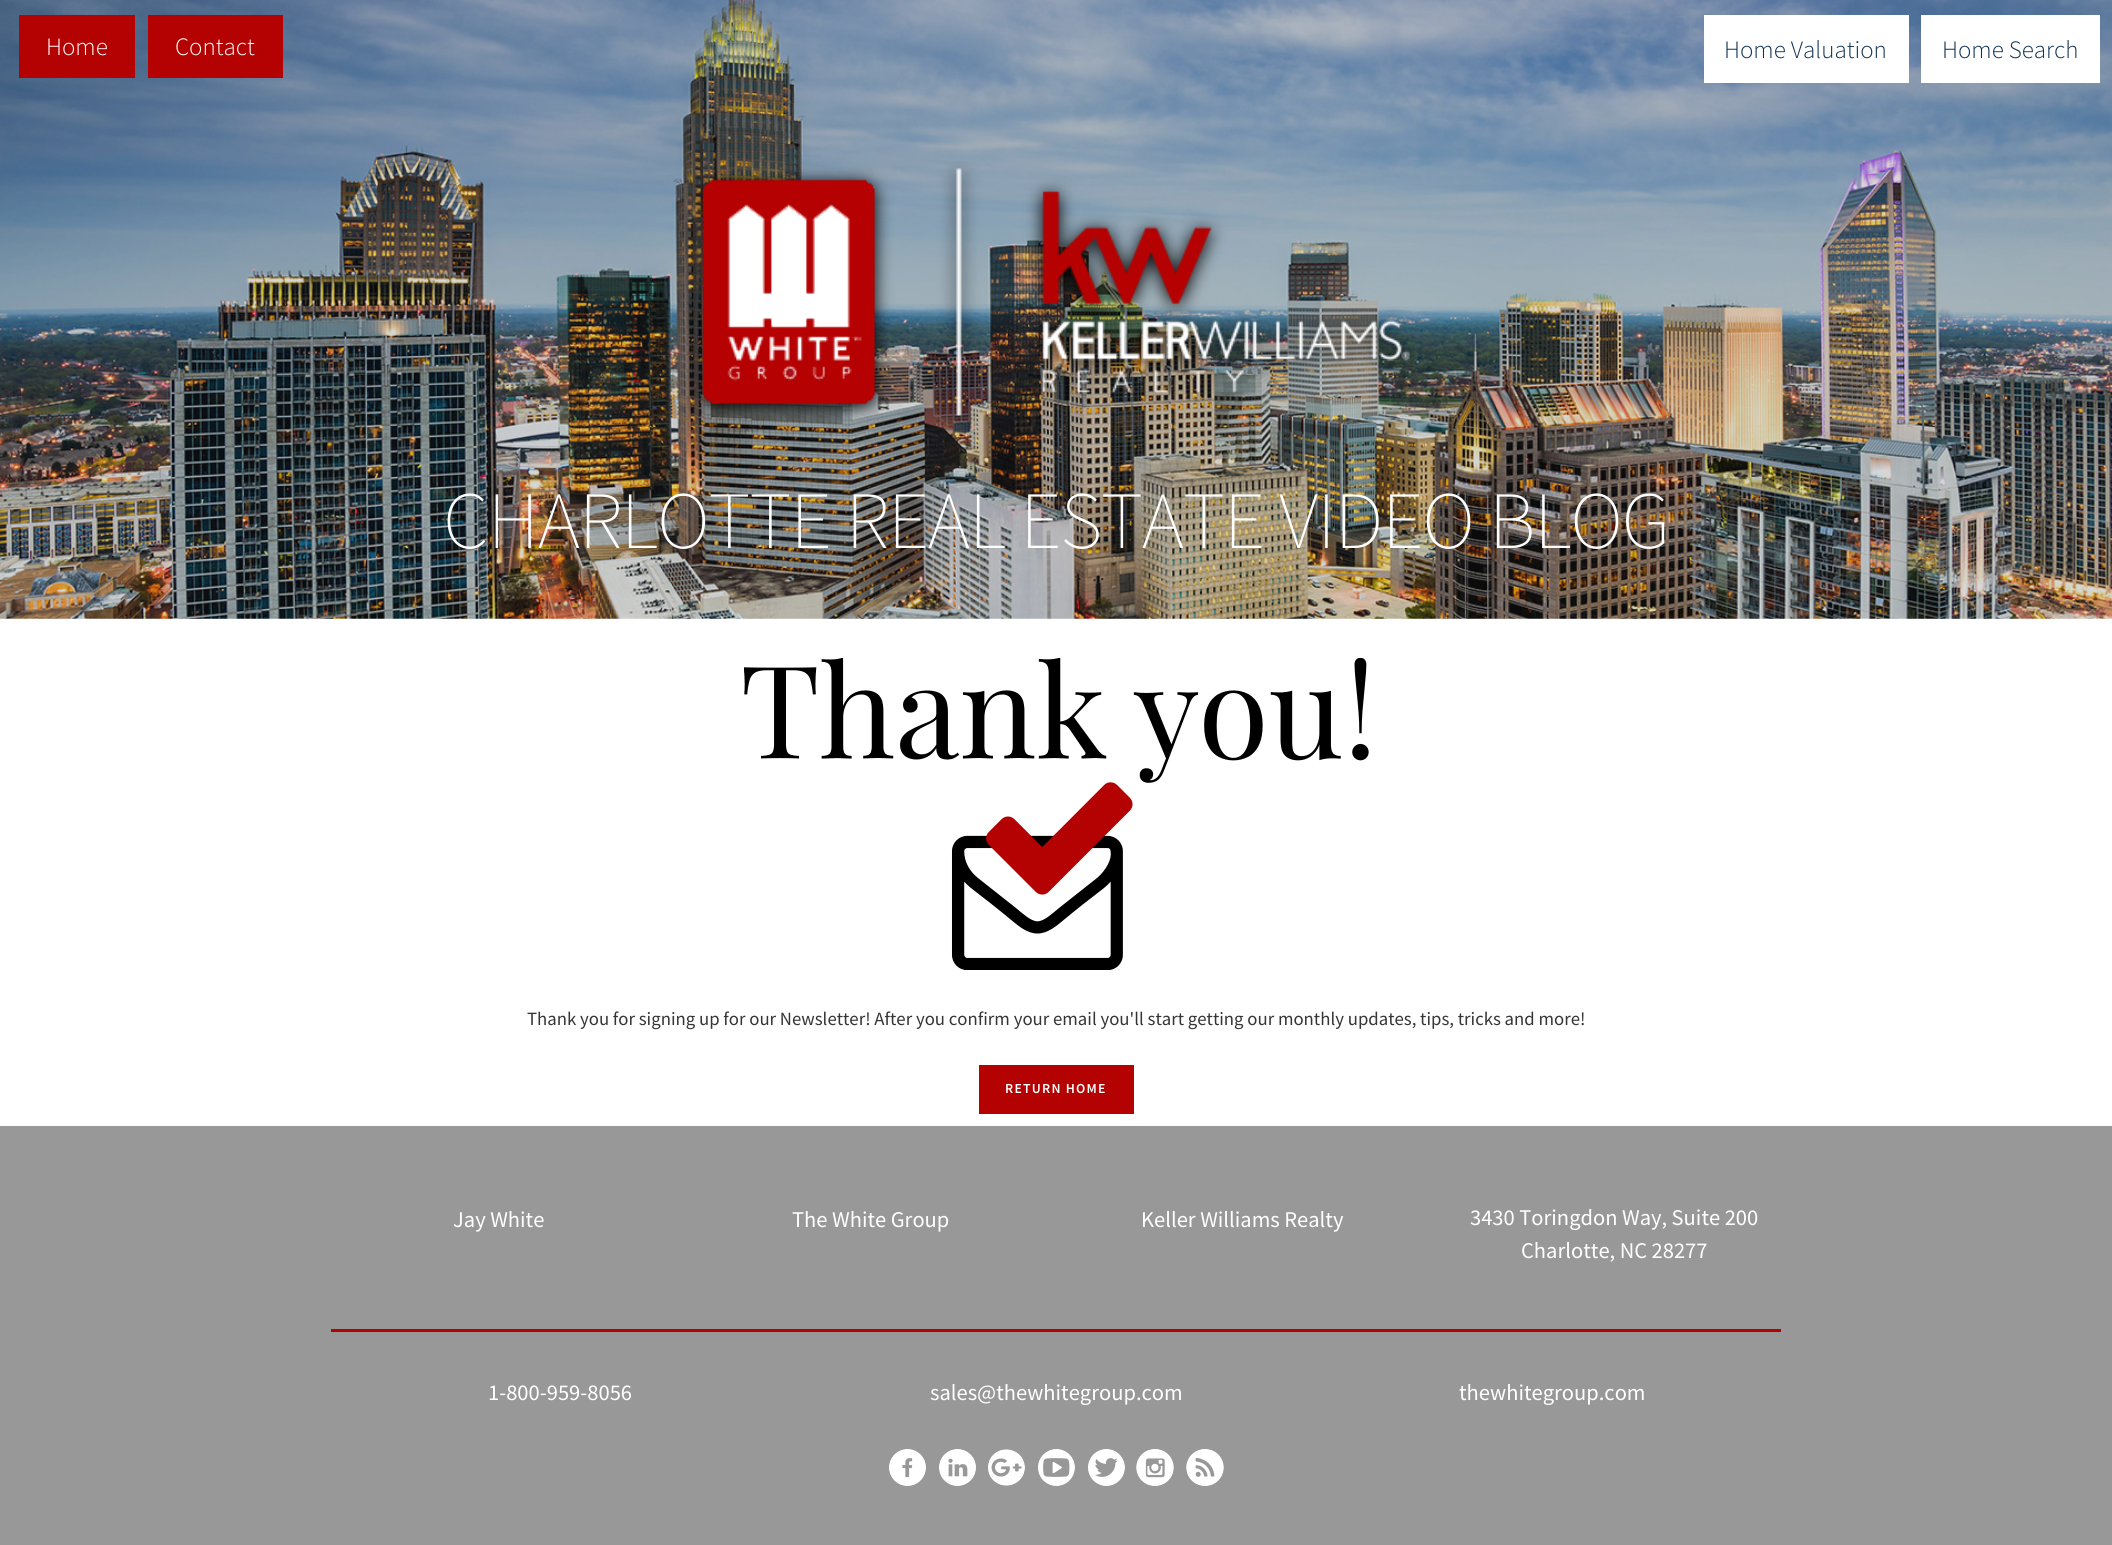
#include <cairo.h>
#include <math.h>
#include <stddef.h>

typedef struct { double x, y; const char *s; } line_t;

static void ink(cairo_t *ctx, unsigned color) {
    cairo_set_source_rgb(ctx, (color >> 16) / 255.0, (color >> 8 & 255) / 255.0, (color & 255) / 255.0);
}

static void write_spaced(cairo_t *ctx, double x, double y, const char *s, double letter, double word) {
    cairo_move_to(ctx, x, y);
    while (*s) {
        char ch[5] = {0};
        int n = 0;
        do ch[n++] = *s++; while ((*s & 0xC0) == 0x80);
        cairo_show_text(ctx, ch);
        cairo_rel_move_to(ctx, letter + word * (*ch == ' '), 0);
    }
}

static void paste(cairo_t *ctx, const char *path, double x, double y, double w, double h) {
    cairo_surface_t *image = cairo_image_surface_create_from_png(path);
    cairo_save(ctx);
    cairo_set_source_surface(ctx, image, x, y);
    cairo_rectangle(ctx, x, y, w, h);
    cairo_fill(ctx);
    cairo_restore(ctx);
    cairo_surface_destroy(image);
}

int main(void) {
    cairo_surface_t *surface = cairo_image_surface_create(CAIRO_FORMAT_RGB24, 2112, 1545);
    cairo_t *ctx = cairo_create(surface);
    cairo_font_options_t *options = cairo_font_options_create();
    cairo_font_options_set_hint_metrics(options, CAIRO_HINT_METRICS_OFF);
    cairo_font_options_set_hint_style(options, CAIRO_HINT_STYLE_NONE);
    cairo_set_font_options(ctx, options);
    cairo_set_miter_limit(ctx, 4);
    ink(ctx, 0xFFFFFF);
    cairo_paint(ctx);
    paste(ctx, "media/2.png", 0, 0, 2112, 619);
    ink(ctx, 0xB40101);
    cairo_rectangle(ctx, 19, 15, 116, 63);
    cairo_fill(ctx);
    cairo_select_font_face(ctx, "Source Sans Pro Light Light", CAIRO_FONT_SLANT_NORMAL, CAIRO_FONT_WEIGHT_NORMAL);
    cairo_set_font_size(ctx, 25);
    ink(ctx, 0xFFFFFF);
    cairo_move_to(ctx, 46, 55);
    cairo_show_text(ctx, "Home");
    ink(ctx, 0xB40101);
    cairo_rectangle(ctx, 148, 15, 135, 63);
    cairo_fill(ctx);
    ink(ctx, 0xFFFFFF);
    cairo_move_to(ctx, 175, 55);
    cairo_show_text(ctx, "Contact");
    cairo_rectangle(ctx, 1704, 15, 205, 68);
    cairo_fill(ctx);
    ink(ctx, 0x123456);
    cairo_move_to(ctx, 1724, 58);
    cairo_show_text(ctx, "Home Valuation");
    ink(ctx, 0xFFFFFF);
    cairo_rectangle(ctx, 1921, 15, 179, 68);
    cairo_fill(ctx);
    ink(ctx, 0x123456);
    cairo_move_to(ctx, 1942, 58);
    cairo_show_text(ctx, "Home Search");
    paste(ctx, "media/1.png", 744, 658, 625, 312);
    cairo_select_font_face(ctx, "Source Sans Pro", CAIRO_FONT_SLANT_NORMAL, CAIRO_FONT_WEIGHT_NORMAL);
    cairo_set_font_size(ctx, 18.75);
    ink(ctx, 0x353535);
    cairo_move_to(ctx, 527, 1025);
    cairo_show_text(ctx, "Thank you for signing up for our Newsletter! After you confirm your email you'll start getting our monthly updates, tips, tricks and more!");
    ink(ctx, 0xB40101);
    cairo_rectangle(ctx, 979, 1065, 155, 49);
    cairo_fill(ctx);
    cairo_select_font_face(ctx, "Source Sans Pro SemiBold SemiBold", CAIRO_FONT_SLANT_NORMAL, CAIRO_FONT_WEIGHT_NORMAL);
    cairo_set_font_size(ctx, 13.75);
    ink(ctx, 0xFFFFFF);
    write_spaced(ctx, 1005, 1093, "RETURN HOME", 1.25, 0);
    paste(ctx, "media/3.png", 688, 161, 726, 262);
    cairo_select_font_face(ctx, "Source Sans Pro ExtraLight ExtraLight", CAIRO_FONT_SLANT_NORMAL, CAIRO_FONT_WEIGHT_NORMAL);
    cairo_set_font_size(ctx, 81.25);
    write_spaced(ctx, 443, 548, "CHARLOTTE REAL ESTATE VIDEO BLOG", -1.25, 0);
    ink(ctx, 0x989898);
    cairo_rectangle(ctx, 0, 1126, 2112, 419);
    cairo_fill(ctx);
    cairo_select_font_face(ctx, "Source Sans Pro", CAIRO_FONT_SLANT_NORMAL, CAIRO_FONT_WEIGHT_NORMAL);
    cairo_set_font_size(ctx, 22.5);
    ink(ctx, 0xFFFFFF);
    {
        static const line_t items[] = {
            {453, 1227, "Jay White"},
            {792, 1227, "The White Group"},
            {1141, 1227, "Keller Williams Realty"},
            {1470, 1225, "3430 Toringdon Way, Suite 200"},
            {1521, 1258, "Charlotte, NC 28277"},
        };
        for (size_t i = 0; i < sizeof items / sizeof *items; i++) {
            cairo_move_to(ctx, items[i].x, items[i].y);
            cairo_show_text(ctx, items[i].s);
        }
    }
    ink(ctx, 0xB40101);
    cairo_rectangle(ctx, 331, 1329, 1450, 3);
    cairo_fill(ctx);
    ink(ctx, 0xFFFFFF);
    {
        static const line_t items[] = {
            {488, 1400, "1-800-959-8056"},
            {930, 1400, "sales@thewhitegroup.com"},
            {1459, 1400, "thewhitegroup.com"},
        };
        for (size_t i = 0; i < sizeof items / sizeof *items; i++) {
            cairo_move_to(ctx, items[i].x, items[i].y);
            cairo_show_text(ctx, items[i].s);
        }
    }
    paste(ctx, "media/4.png", 889, 1449, 37, 37);
    paste(ctx, "media/5.png", 939, 1449, 37, 37);
    paste(ctx, "media/6.png", 988, 1449, 37, 37);
    paste(ctx, "media/7.png", 1038, 1449, 37, 37);
    paste(ctx, "media/8.png", 1088, 1449, 37, 37);
    paste(ctx, "media/9.png", 1136, 1449, 38, 37);
    paste(ctx, "media/10.png", 1186, 1449, 38, 37);
    cairo_surface_write_to_png(surface, "image.png");
    cairo_font_options_destroy(options);
    cairo_destroy(ctx);
    cairo_surface_destroy(surface);
    return 0;
}
